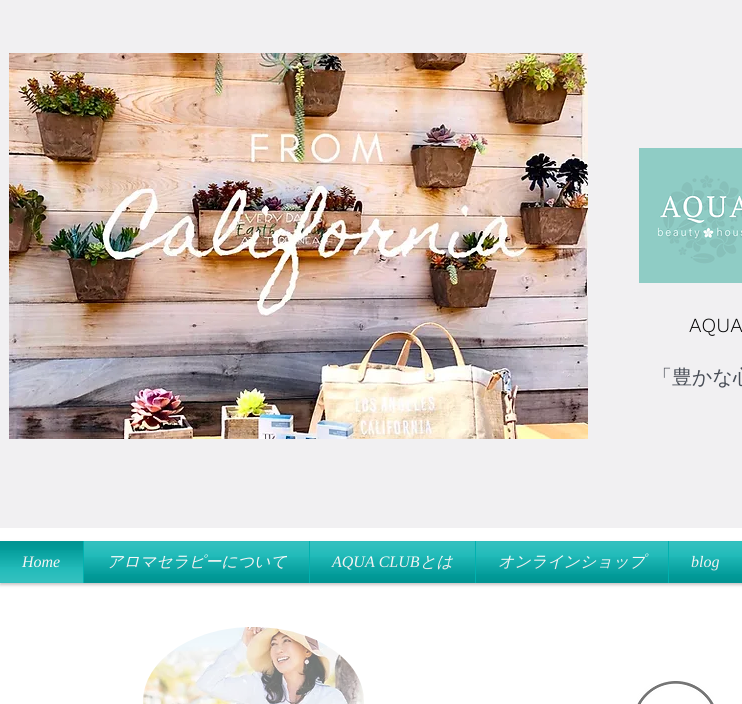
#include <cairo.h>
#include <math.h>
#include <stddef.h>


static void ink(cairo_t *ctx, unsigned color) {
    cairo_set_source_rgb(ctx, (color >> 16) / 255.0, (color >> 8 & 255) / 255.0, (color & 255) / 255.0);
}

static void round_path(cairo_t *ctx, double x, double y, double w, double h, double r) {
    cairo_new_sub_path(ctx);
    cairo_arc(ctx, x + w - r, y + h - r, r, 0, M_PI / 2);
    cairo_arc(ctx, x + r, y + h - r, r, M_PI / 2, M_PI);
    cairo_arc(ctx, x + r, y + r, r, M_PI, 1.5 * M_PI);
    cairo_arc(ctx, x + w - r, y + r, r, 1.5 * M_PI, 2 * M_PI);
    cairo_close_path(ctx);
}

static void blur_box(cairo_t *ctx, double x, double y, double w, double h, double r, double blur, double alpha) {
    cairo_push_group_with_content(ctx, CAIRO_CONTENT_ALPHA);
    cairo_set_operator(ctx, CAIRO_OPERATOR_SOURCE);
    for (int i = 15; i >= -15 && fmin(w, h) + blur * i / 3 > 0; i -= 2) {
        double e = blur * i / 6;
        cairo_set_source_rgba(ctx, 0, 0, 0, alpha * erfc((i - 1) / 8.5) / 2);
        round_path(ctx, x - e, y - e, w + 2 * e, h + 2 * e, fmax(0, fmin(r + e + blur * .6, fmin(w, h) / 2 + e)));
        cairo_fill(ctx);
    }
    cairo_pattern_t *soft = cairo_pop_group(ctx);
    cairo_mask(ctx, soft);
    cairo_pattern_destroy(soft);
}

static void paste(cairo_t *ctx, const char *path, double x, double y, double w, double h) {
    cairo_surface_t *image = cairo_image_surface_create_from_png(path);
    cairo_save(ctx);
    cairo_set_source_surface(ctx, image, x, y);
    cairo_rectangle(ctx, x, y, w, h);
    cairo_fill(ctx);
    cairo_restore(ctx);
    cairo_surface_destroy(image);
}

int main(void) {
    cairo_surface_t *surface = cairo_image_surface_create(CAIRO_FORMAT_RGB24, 742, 704);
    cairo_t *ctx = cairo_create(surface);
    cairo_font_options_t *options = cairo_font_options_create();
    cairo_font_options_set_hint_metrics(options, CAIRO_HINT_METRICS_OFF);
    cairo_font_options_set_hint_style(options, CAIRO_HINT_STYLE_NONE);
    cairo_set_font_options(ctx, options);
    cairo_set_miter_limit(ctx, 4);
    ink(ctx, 0xF1F0F2);
    cairo_paint(ctx);
    paste(ctx, "media/1.png", 9, 53, 579, 386);
    paste(ctx, "media/2.png", 639, 148, 103, 135);
    cairo_select_font_face(ctx, "Work Sans Light", CAIRO_FONT_SLANT_NORMAL, CAIRO_FONT_WEIGHT_NORMAL);
    cairo_set_font_size(ctx, 20);
    ink(ctx, 0x000000);
    cairo_move_to(ctx, 689, 332);
    cairo_show_text(ctx, "AQUA");
    cairo_select_font_face(ctx, "WenQuanYi Zen Hei Medium", CAIRO_FONT_SLANT_NORMAL, CAIRO_FONT_WEIGHT_NORMAL);
    ink(ctx, 0x484D56);
    cairo_move_to(ctx, 652, 384);
    cairo_show_text(ctx, "「豊かな心");
    ink(ctx, 0xFFFFFF);
    cairo_rectangle(ctx, 0, 528, 742, 176);
    cairo_fill(ctx);
    ink(ctx, 0xA29E9E);
    blur_box(ctx, 0, 543, 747, 42, 0, 1.5, 0.6);
    ink(ctx, 0x01B1AF);
    cairo_rectangle(ctx, 0, 541, 742, 42);
    cairo_fill(ctx);
    cairo_select_font_face(ctx, "Liberation Serif", CAIRO_FONT_SLANT_ITALIC, CAIRO_FONT_WEIGHT_NORMAL);
    cairo_set_font_size(ctx, 16);
    ink(ctx, 0xFFFFFF);
    cairo_move_to(ctx, 22, 567);
    cairo_show_text(ctx, "Home");
    paste(ctx, "media/3.png", 0, 541, 83, 26);
    paste(ctx, "media/4.png", 0, 550, 83, 33);
    cairo_select_font_face(ctx, "WenQuanYi Zen Hei Medium", CAIRO_FONT_SLANT_ITALIC, CAIRO_FONT_WEIGHT_NORMAL);
    cairo_move_to(ctx, 107, 567);
    cairo_show_text(ctx, "アロマセラピーについて");
    paste(ctx, "media/5.png", 84, 541, 225, 33);
    paste(ctx, "media/6.png", 84, 557, 225, 26);
    cairo_select_font_face(ctx, "Liberation Serif", CAIRO_FONT_SLANT_ITALIC, CAIRO_FONT_WEIGHT_NORMAL);
    cairo_move_to(ctx, 332, 567);
    cairo_show_text(ctx, "AQUA CLUB");
    cairo_select_font_face(ctx, "WenQuanYi Zen Hei Medium", CAIRO_FONT_SLANT_ITALIC, CAIRO_FONT_WEIGHT_NORMAL);
    cairo_move_to(ctx, 420, 567);
    cairo_show_text(ctx, "とは");
    paste(ctx, "media/7.png", 310, 541, 165, 33);
    paste(ctx, "media/8.png", 310, 557, 165, 26);
    cairo_move_to(ctx, 498, 567);
    cairo_show_text(ctx, "オンラインショップ");
    paste(ctx, "media/9.png", 476, 541, 192, 33);
    paste(ctx, "media/10.png", 476, 557, 192, 26);
    cairo_select_font_face(ctx, "Liberation Serif", CAIRO_FONT_SLANT_ITALIC, CAIRO_FONT_WEIGHT_NORMAL);
    cairo_move_to(ctx, 691, 567);
    cairo_show_text(ctx, "blog");
    paste(ctx, "media/11.png", 669, 541, 73, 33);
    paste(ctx, "media/12.png", 669, 557, 73, 26);
    paste(ctx, "media/13.png", 143, 627, 221, 77);
    paste(ctx, "media/14.png", 637, 681, 77, 23);
    cairo_surface_write_to_png(surface, "image.png");
    cairo_font_options_destroy(options);
    cairo_destroy(ctx);
    cairo_surface_destroy(surface);
    return 0;
}
